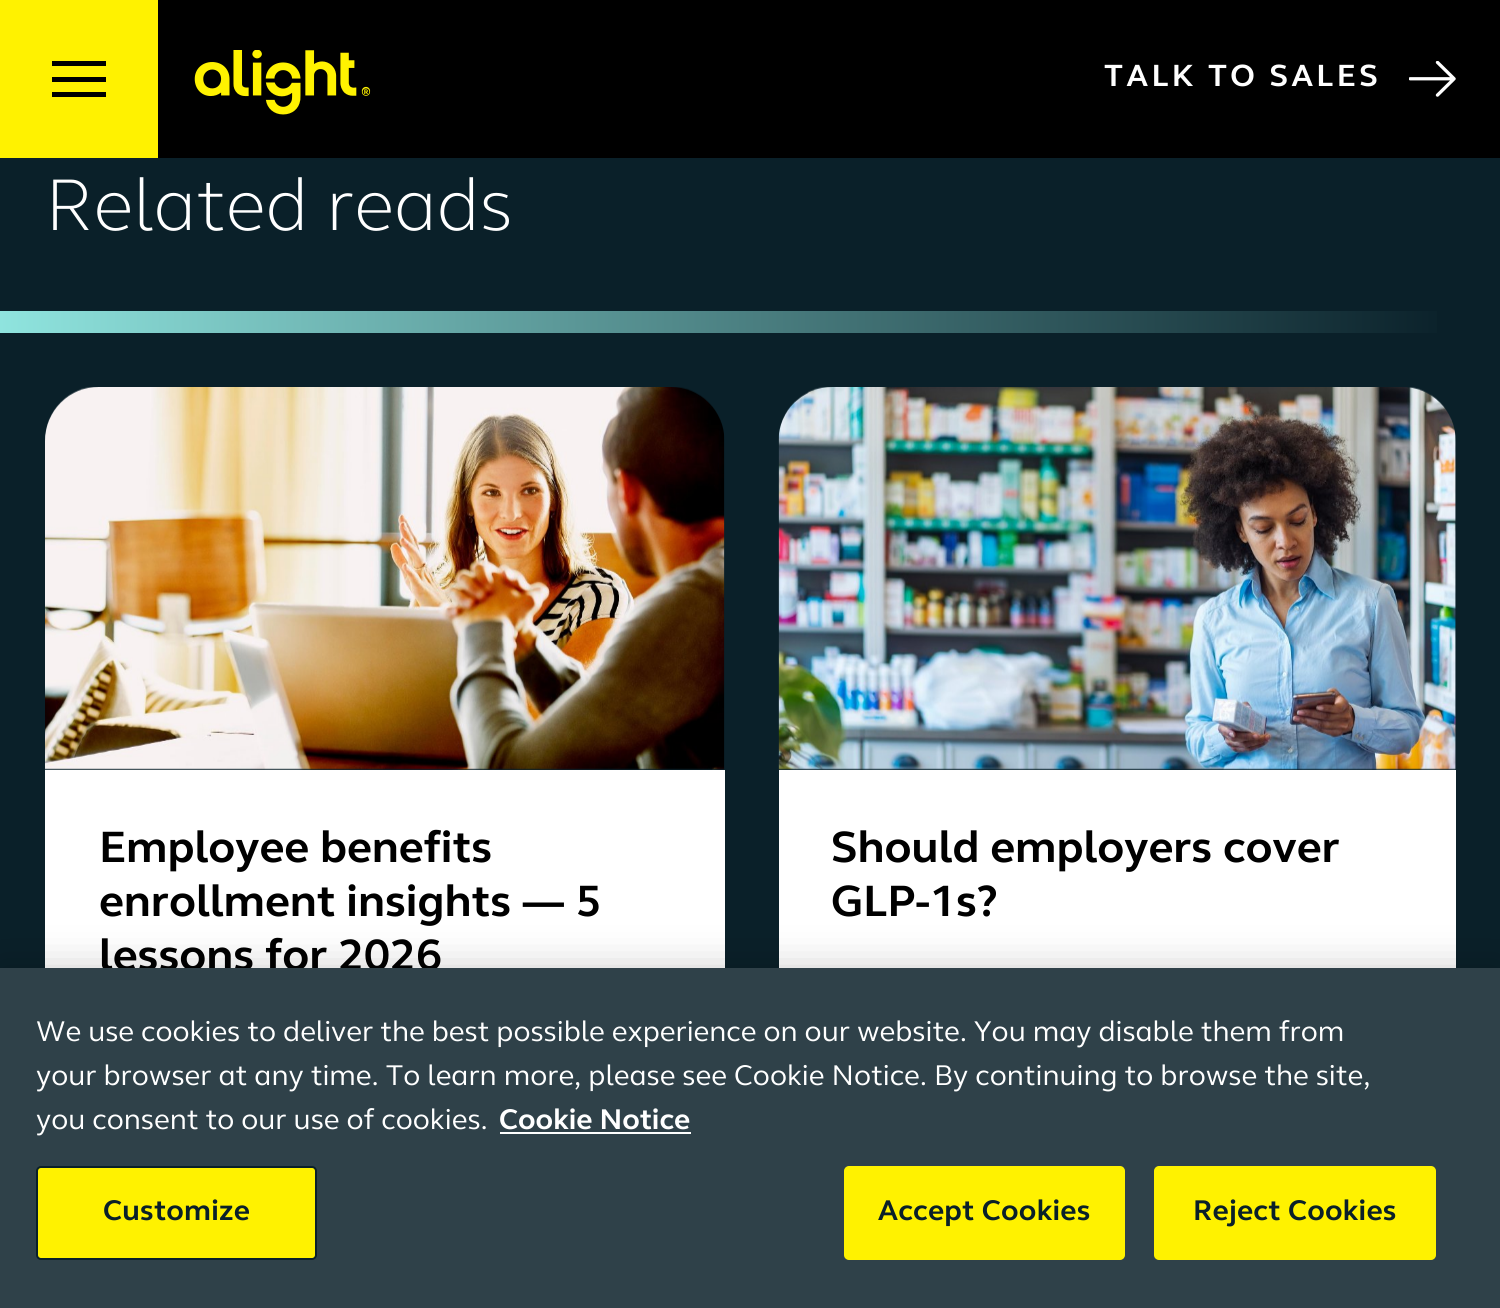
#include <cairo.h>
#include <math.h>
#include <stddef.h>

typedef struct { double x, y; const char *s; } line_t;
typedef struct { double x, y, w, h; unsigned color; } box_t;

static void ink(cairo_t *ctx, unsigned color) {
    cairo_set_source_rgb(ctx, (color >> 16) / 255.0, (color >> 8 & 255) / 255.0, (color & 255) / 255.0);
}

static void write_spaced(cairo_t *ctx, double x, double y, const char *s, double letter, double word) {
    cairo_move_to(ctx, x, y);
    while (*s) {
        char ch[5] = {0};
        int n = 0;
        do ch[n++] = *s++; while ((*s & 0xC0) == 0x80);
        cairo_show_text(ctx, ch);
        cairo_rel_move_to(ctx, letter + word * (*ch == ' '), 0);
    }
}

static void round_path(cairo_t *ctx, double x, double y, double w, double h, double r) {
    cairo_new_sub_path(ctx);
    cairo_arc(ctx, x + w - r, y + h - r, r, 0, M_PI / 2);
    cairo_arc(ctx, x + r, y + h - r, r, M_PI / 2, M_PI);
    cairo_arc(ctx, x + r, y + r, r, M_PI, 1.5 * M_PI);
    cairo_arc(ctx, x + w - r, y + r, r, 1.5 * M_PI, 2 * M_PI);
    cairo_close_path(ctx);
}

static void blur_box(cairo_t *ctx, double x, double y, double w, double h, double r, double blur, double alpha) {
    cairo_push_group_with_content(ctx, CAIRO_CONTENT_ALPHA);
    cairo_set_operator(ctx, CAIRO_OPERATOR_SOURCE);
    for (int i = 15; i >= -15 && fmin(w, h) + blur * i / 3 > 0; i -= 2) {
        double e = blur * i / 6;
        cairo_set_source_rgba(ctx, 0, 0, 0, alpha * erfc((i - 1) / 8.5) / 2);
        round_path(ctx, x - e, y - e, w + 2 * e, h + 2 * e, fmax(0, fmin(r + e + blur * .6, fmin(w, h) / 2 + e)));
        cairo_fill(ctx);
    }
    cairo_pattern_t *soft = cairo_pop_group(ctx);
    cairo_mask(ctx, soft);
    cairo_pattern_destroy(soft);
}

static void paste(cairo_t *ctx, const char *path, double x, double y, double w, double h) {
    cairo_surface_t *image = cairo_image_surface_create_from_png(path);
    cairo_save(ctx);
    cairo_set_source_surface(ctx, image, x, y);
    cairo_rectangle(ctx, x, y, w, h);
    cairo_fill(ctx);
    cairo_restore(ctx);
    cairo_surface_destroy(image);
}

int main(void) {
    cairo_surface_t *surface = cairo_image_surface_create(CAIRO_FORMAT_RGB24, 1500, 1308);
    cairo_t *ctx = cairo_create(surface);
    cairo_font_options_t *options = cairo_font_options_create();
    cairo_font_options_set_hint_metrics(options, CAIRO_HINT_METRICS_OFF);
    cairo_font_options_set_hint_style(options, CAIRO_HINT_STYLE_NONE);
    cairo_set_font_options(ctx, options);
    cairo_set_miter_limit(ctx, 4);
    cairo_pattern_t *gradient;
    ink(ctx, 0x0A2029);
    cairo_paint(ctx);
    {
        static const box_t items[] = {
            {158, 0, 1342, 158, 0x000000},
            {0, 0, 158, 158, 0xFFF200},
            {52, 61, 54, 5, 0x000000},
            {52, 77, 54, 5, 0x000000},
            {52, 92, 54, 5, 0x000000},
        };
        for (size_t i = 0; i < sizeof items / sizeof *items; i++) {
            ink(ctx, items[i].color);
            cairo_rectangle(ctx, items[i].x, items[i].y, items[i].w, items[i].h);
            cairo_fill(ctx);
        }
    }
    paste(ctx, "media/1.png", 194, 50, 177, 65);
    cairo_select_font_face(ctx, "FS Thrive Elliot", CAIRO_FONT_SLANT_NORMAL, CAIRO_FONT_WEIGHT_BOLD);
    cairo_set_font_size(ctx, 31.5);
    ink(ctx, 0xFFFFFF);
    write_spaced(ctx, 1104, 86, "TALK TO SALES", 3.5, 0);
    paste(ctx, "media/2.png", 1409, 61, 47, 36);
    cairo_select_font_face(ctx, "FS Thrive Elliot Light", CAIRO_FONT_SLANT_NORMAL, CAIRO_FONT_WEIGHT_NORMAL);
    cairo_set_font_size(ctx, 75);
    cairo_move_to(ctx, 45, 230);
    cairo_show_text(ctx, "Related reads");
    gradient = cairo_pattern_create_linear(0, 322, 1456, 322);
    cairo_pattern_add_color_stop_rgba(gradient, 0, 0.561, 0.894, 0.871, 1);
    cairo_pattern_add_color_stop_rgba(gradient, 1, 0.039, 0.125, 0.161, 1);
    cairo_set_source(ctx, gradient);
    cairo_pattern_destroy(gradient);
    cairo_rectangle(ctx, 0, 311, 1437, 22);
    cairo_fill(ctx);
    paste(ctx, "media/3.png", 45, 387, 680, 383);
    ink(ctx, 0xFFFFFF);
    cairo_rectangle(ctx, 45, 770, 680, 198);
    cairo_fill(ctx);
    cairo_select_font_face(ctx, "FS Thrive Elliot", CAIRO_FONT_SLANT_NORMAL, CAIRO_FONT_WEIGHT_BOLD);
    cairo_set_font_size(ctx, 45);
    ink(ctx, 0x000000);
    {
        static const line_t items[] = {
            {99, 862, "Employee benefits"},
            {99, 916, "enrollment insights — 5"},
            {99, 970, "lessons for 2026"},
        };
        for (size_t i = 0; i < sizeof items / sizeof *items; i++) {
            cairo_move_to(ctx, items[i].x, items[i].y);
            cairo_show_text(ctx, items[i].s);
        }
    }
    paste(ctx, "media/4.png", 778, 387, 678, 383);
    ink(ctx, 0xFFFFFF);
    cairo_rectangle(ctx, 779, 770, 677, 198);
    cairo_fill(ctx);
    ink(ctx, 0x000000);
    cairo_move_to(ctx, 831, 862);
    cairo_show_text(ctx, "Should employers cover");
    cairo_move_to(ctx, 831, 916);
    cairo_show_text(ctx, "GLP-1s?");
    ink(ctx, 0x000000);
    blur_box(ctx, 0, 968, 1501, 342, 0, 20, 0.2);
    ink(ctx, 0x2F4149);
    cairo_rectangle(ctx, 0, 968, 1500, 340);
    cairo_fill(ctx);
    cairo_select_font_face(ctx, "FS Thrive Elliot", CAIRO_FONT_SLANT_NORMAL, CAIRO_FONT_WEIGHT_NORMAL);
    cairo_set_font_size(ctx, 29.25);
    ink(ctx, 0xFFFFFF);
    {
        static const line_t items[] = {
            {36, 1041, "We use cookies to deliver the best possible experience on our website. You may disable them from"},
            {36, 1085, "your browser at any time. To learn more, please see Cookie Notice. By continuing to browse the site,"},
            {36, 1129, "you consent to our use of cookies."},
        };
        for (size_t i = 0; i < sizeof items / sizeof *items; i++) {
            cairo_move_to(ctx, items[i].x, items[i].y);
            cairo_show_text(ctx, items[i].s);
        }
    }
    cairo_select_font_face(ctx, "FS Thrive Elliot", CAIRO_FONT_SLANT_NORMAL, CAIRO_FONT_WEIGHT_BOLD);
    cairo_move_to(ctx, 499, 1129);
    cairo_show_text(ctx, "Cookie Notice");
    cairo_rectangle(ctx, 500, 1132, 191, 2);
    cairo_fill(ctx);
    ink(ctx, 0xFFF200);
    round_path(ctx, 37, 1167, 279, 92, 4);
    cairo_fill_preserve(ctx);
    ink(ctx, 0x0A2029);
    cairo_stroke(ctx);
    write_spaced(ctx, 103, 1220, "Customize", 0.25, 0);
    ink(ctx, 0xFFF200);
    round_path(ctx, 845, 1167, 279, 92, 4);
    cairo_fill_preserve(ctx);
    cairo_stroke(ctx);
    ink(ctx, 0x0A2029);
    write_spaced(ctx, 878, 1220, "Accept Cookies", 0.25, 0);
    ink(ctx, 0xFFF200);
    round_path(ctx, 1155, 1167, 280, 92, 4);
    cairo_fill_preserve(ctx);
    cairo_stroke(ctx);
    ink(ctx, 0x0A2029);
    write_spaced(ctx, 1193, 1220, "Reject Cookies", 0.25, 0);
    cairo_surface_write_to_png(surface, "image.png");
    cairo_font_options_destroy(options);
    cairo_destroy(ctx);
    cairo_surface_destroy(surface);
    return 0;
}
